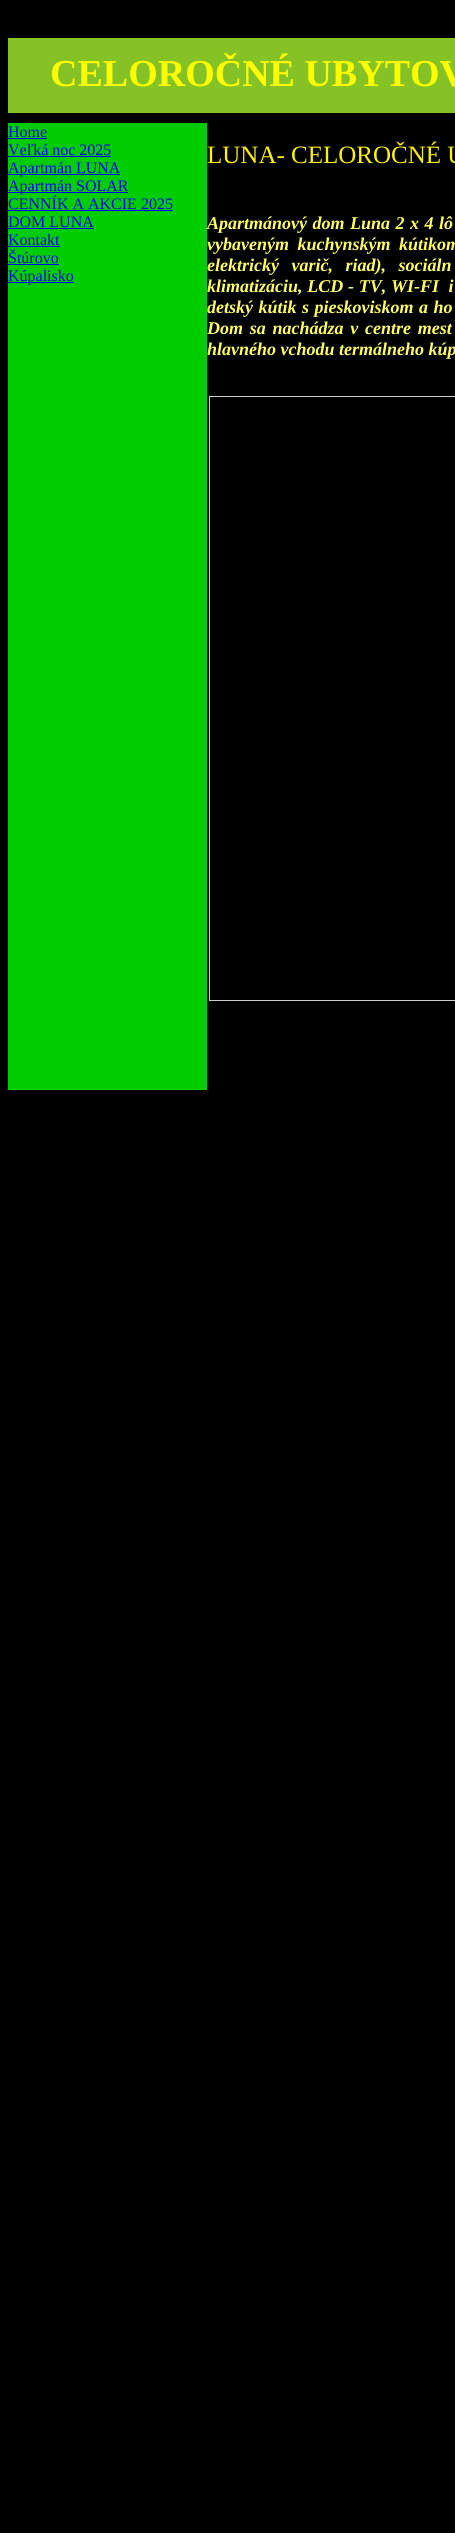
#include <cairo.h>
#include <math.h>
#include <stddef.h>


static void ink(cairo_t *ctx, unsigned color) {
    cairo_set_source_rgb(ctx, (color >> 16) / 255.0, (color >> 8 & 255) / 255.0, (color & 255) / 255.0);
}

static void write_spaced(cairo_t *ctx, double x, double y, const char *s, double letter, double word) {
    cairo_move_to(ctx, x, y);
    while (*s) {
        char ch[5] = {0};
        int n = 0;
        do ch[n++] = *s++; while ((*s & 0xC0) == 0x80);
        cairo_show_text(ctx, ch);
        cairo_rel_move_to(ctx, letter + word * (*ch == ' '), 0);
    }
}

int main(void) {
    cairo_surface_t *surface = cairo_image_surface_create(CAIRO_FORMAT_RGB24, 455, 2533);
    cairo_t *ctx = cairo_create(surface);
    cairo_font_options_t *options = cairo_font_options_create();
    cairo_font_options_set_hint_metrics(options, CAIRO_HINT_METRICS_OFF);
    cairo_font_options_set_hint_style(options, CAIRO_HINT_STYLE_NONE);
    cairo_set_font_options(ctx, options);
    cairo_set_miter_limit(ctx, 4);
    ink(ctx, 0x000000);
    cairo_paint(ctx);
    ink(ctx, 0x85C226);
    cairo_rectangle(ctx, 8, 38, 447, 75);
    cairo_fill(ctx);
    cairo_select_font_face(ctx, "Liberation Serif", CAIRO_FONT_SLANT_NORMAL, CAIRO_FONT_WEIGHT_BOLD);
    cairo_set_font_size(ctx, 38);
    ink(ctx, 0xFFFF00);
    cairo_move_to(ctx, 50, 86);
    cairo_show_text(ctx, "CELOROČNÉ UBYTOV");
    ink(ctx, 0x00CC00);
    cairo_rectangle(ctx, 8, 123, 199, 967);
    cairo_fill(ctx);
    cairo_select_font_face(ctx, "Liberation Serif", CAIRO_FONT_SLANT_NORMAL, CAIRO_FONT_WEIGHT_NORMAL);
    cairo_set_font_size(ctx, 16);
    ink(ctx, 0x0000EE);
    cairo_move_to(ctx, 8, 137);
    cairo_show_text(ctx, "Home");
    cairo_rectangle(ctx, 8, 138, 39, 1);
    cairo_fill(ctx);
    cairo_move_to(ctx, 8, 155);
    cairo_show_text(ctx, "Veľká noc 2025");
    cairo_rectangle(ctx, 8, 156, 103, 1);
    cairo_fill(ctx);
    cairo_rectangle(ctx, 8, 174, 112, 1);
    cairo_fill(ctx);
    cairo_move_to(ctx, 8, 173);
    cairo_show_text(ctx, "Apartmán LUNA");
    cairo_rectangle(ctx, 8, 192, 120, 1);
    cairo_fill(ctx);
    cairo_move_to(ctx, 8, 191);
    cairo_show_text(ctx, "Apartmán SOLAR");
    cairo_move_to(ctx, 8, 209);
    cairo_show_text(ctx, "CENNÍK A AKCIE 2025");
    cairo_rectangle(ctx, 8, 210, 165, 1);
    cairo_fill(ctx);
    cairo_move_to(ctx, 8, 227);
    cairo_show_text(ctx, "DOM LUNA");
    cairo_rectangle(ctx, 8, 228, 86, 1);
    cairo_fill(ctx);
    cairo_move_to(ctx, 8, 245);
    cairo_show_text(ctx, "Kontakt");
    cairo_rectangle(ctx, 8, 246, 52, 1);
    cairo_fill(ctx);
    cairo_move_to(ctx, 8, 263);
    cairo_show_text(ctx, "Štúrovo");
    cairo_rectangle(ctx, 8, 264, 51, 1);
    cairo_fill(ctx);
    cairo_rectangle(ctx, 8, 282, 66, 1);
    cairo_fill(ctx);
    cairo_move_to(ctx, 8, 281);
    cairo_show_text(ctx, "Kúpalisko");
    cairo_set_font_size(ctx, 25);
    ink(ctx, 0xFDF200);
    cairo_move_to(ctx, 207, 163);
    cairo_show_text(ctx, "LUNA- CELOROČNÉ U");
    cairo_select_font_face(ctx, "Liberation Serif", CAIRO_FONT_SLANT_ITALIC, CAIRO_FONT_WEIGHT_BOLD);
    cairo_set_font_size(ctx, 18);
    ink(ctx, 0xFFFF66);
    write_spaced(ctx, 207, 229, "Apartmánový dom Luna 2 x 4 lô", 0, 1);
    write_spaced(ctx, 207, 250, "vybaveným kuchynským kútikom", 0, 4);
    write_spaced(ctx, 207, 271, "elektrický varič, riad), sociáln", 0, 8);
    write_spaced(ctx, 207, 292, "klimatizáciu, LCD - TV, WI-FI  i", 0, 0.25);
    write_spaced(ctx, 207, 313, "detský kútik s pieskoviskom a ho", 0, 1);
    write_spaced(ctx, 207, 334, "Dom sa nachádza v centre mest", 0, 2.25);
    cairo_move_to(ctx, 207, 355);
    cairo_show_text(ctx, "hlavného vchodu termálneho kúp");
    cairo_rectangle(ctx, 209.5, 396.5, 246, 604);
    ink(ctx, 0xCCCCCC);
    cairo_set_line_width(ctx, 1);
    cairo_stroke(ctx);
    cairo_surface_write_to_png(surface, "image.png");
    cairo_font_options_destroy(options);
    cairo_destroy(ctx);
    cairo_surface_destroy(surface);
    return 0;
}
